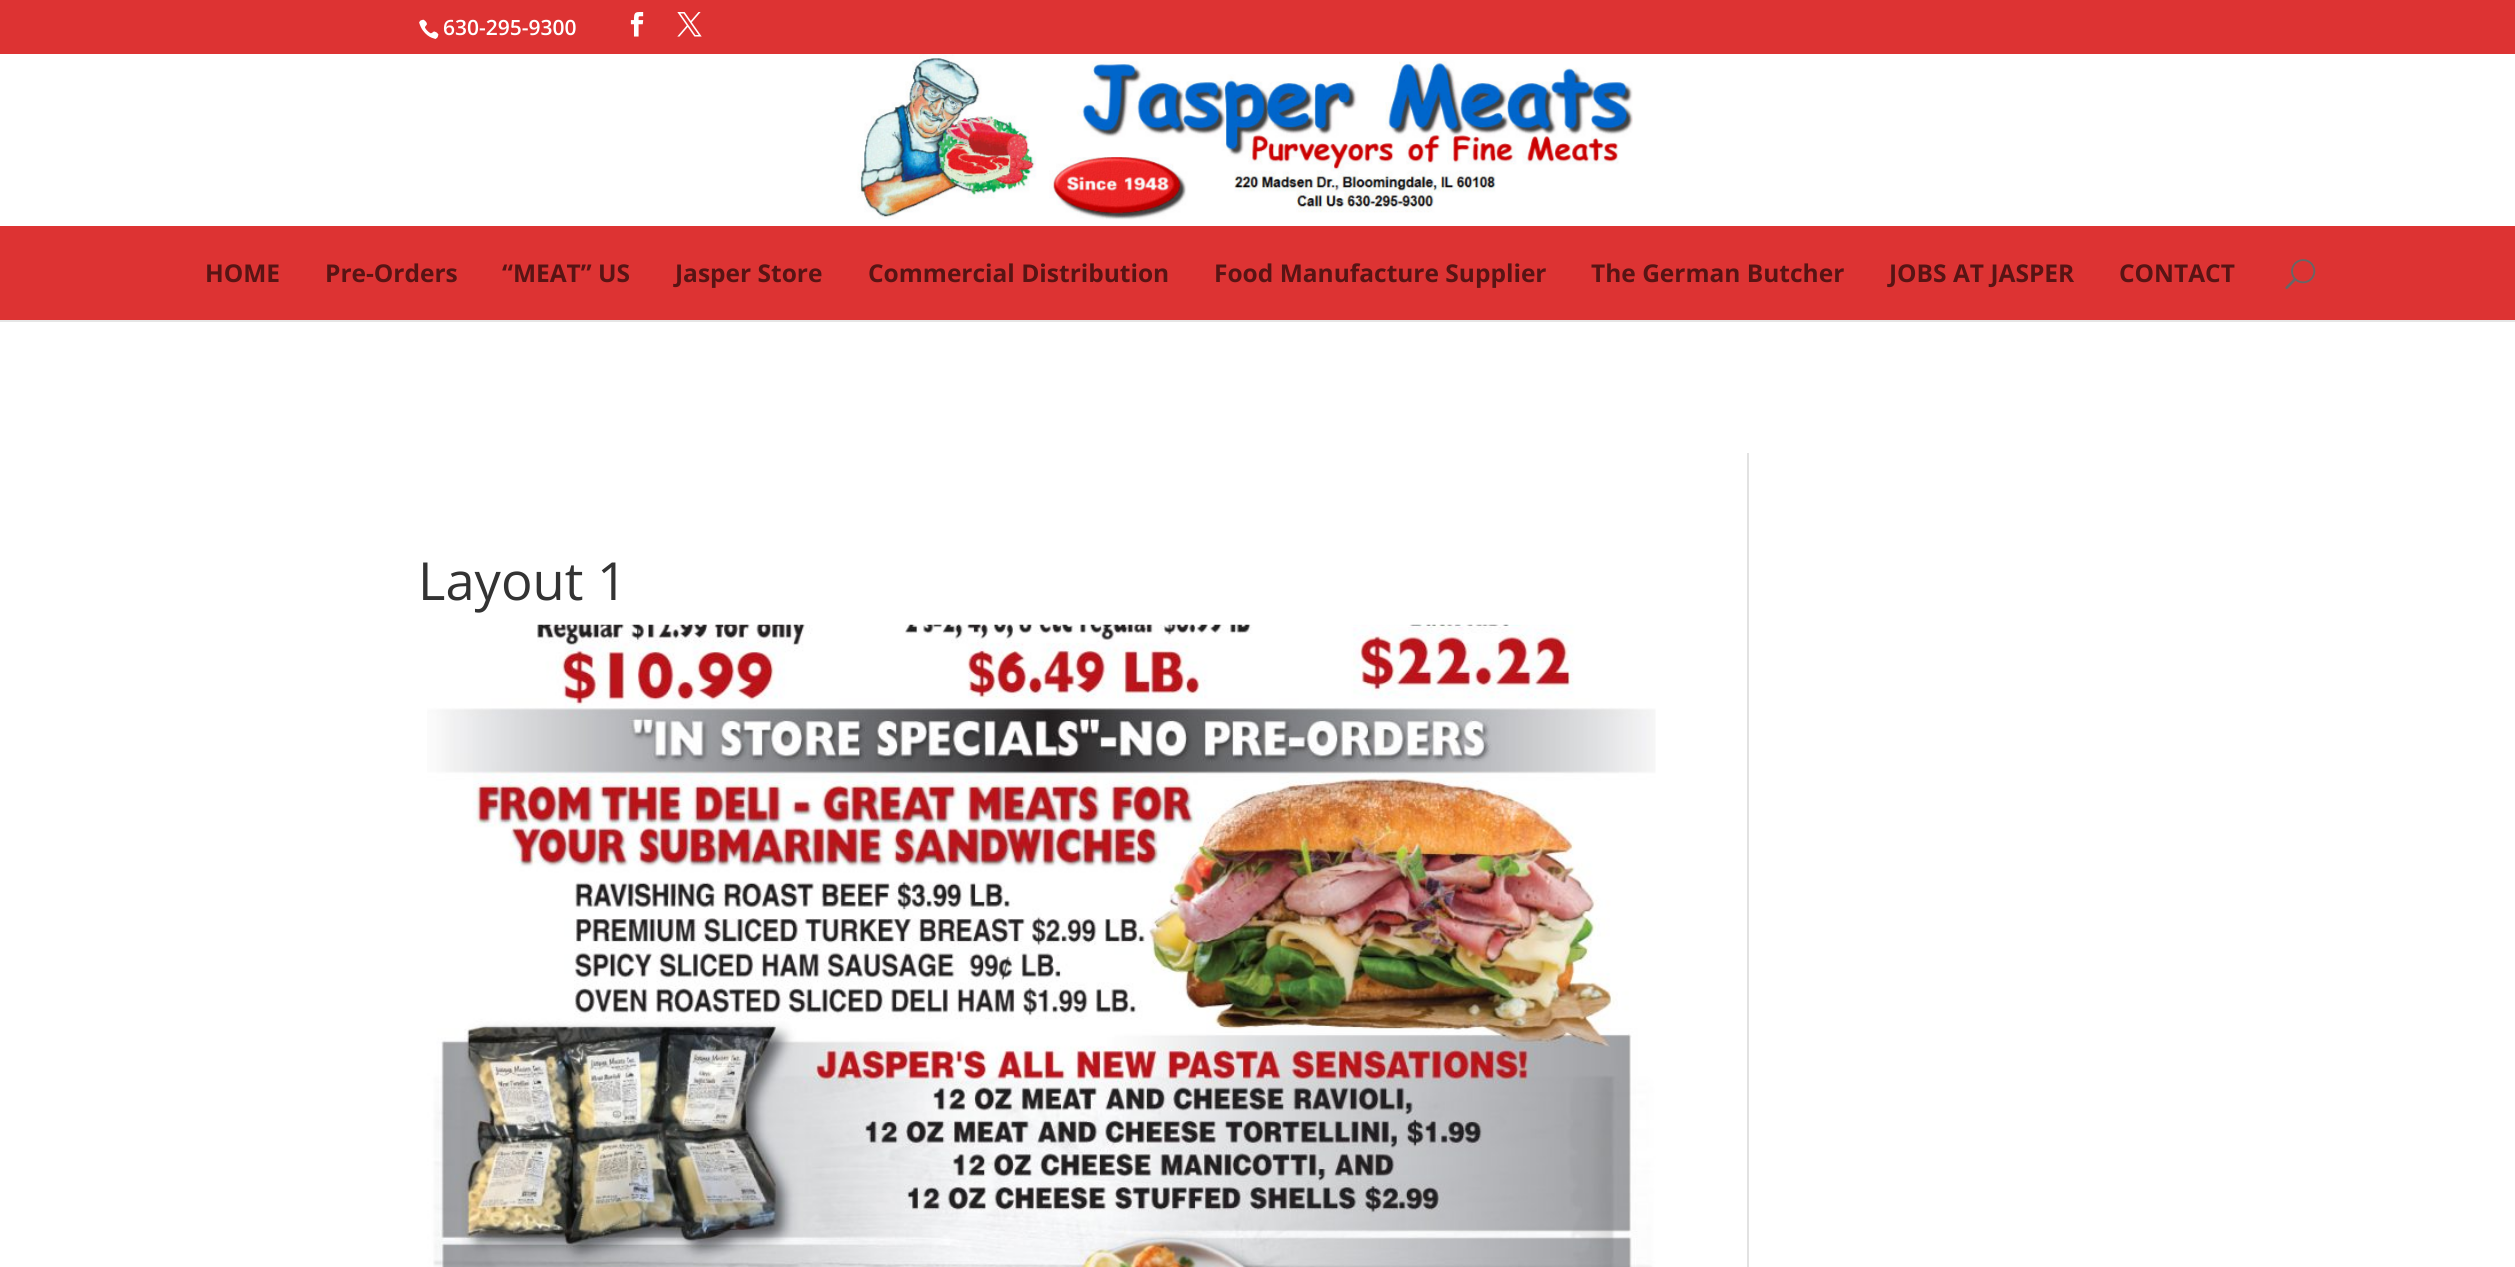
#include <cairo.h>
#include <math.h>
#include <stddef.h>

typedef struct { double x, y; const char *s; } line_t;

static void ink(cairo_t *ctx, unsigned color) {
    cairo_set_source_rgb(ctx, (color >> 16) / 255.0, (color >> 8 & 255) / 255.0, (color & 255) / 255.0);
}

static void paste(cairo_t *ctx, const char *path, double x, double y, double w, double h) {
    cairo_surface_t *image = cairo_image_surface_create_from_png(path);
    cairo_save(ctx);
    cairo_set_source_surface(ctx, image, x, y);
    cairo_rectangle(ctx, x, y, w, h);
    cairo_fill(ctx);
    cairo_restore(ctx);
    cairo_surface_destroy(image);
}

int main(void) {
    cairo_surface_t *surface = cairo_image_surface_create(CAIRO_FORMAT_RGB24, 2515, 1267);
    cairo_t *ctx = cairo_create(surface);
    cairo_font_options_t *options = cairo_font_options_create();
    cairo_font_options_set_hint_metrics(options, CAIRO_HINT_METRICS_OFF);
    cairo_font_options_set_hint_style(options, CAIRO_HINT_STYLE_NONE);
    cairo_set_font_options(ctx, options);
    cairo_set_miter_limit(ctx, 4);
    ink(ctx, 0xFFFFFF);
    cairo_paint(ctx);
    ink(ctx, 0xDD3333);
    cairo_rectangle(ctx, 0, 0, 2515, 54);
    cairo_fill(ctx);
    paste(ctx, "media/1.png", 419, 19, 20, 20);
    cairo_select_font_face(ctx, "Open Sans SemiBold", CAIRO_FONT_SLANT_NORMAL, CAIRO_FONT_WEIGHT_NORMAL);
    cairo_set_font_size(ctx, 21);
    ink(ctx, 0xFFFFFF);
    cairo_move_to(ctx, 443, 35);
    cairo_show_text(ctx, "630-295-9300");
    paste(ctx, "media/2.png", 630, 12, 14, 25);
    paste(ctx, "media/3.png", 677, 12, 25, 25);
    ink(ctx, 0xE6E6E6);
    cairo_new_path(ctx);
    cairo_move_to(ctx, 0, 320);
    cairo_line_to(ctx, 0, 322);
    cairo_line_to(ctx, 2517, 322);
    cairo_line_to(ctx, 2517, 56);
    cairo_line_to(ctx, 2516, 56);
    cairo_line_to(ctx, 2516, 320);
    cairo_close_path(ctx);
    cairo_fill(ctx);
    paste(ctx, "media/4.png", 857, 54, 776, 166);
    ink(ctx, 0xDD3333);
    cairo_rectangle(ctx, 0, 226, 2515, 94);
    cairo_fill(ctx);
    cairo_select_font_face(ctx, "Open Sans", CAIRO_FONT_SLANT_NORMAL, CAIRO_FONT_WEIGHT_BOLD);
    cairo_set_font_size(ctx, 24.5);
    ink(ctx, 0x581414);
    {
        static const line_t items[] = {
            {205, 282, "HOME"},
            {325, 282, "Pre-Orders"},
            {502, 282, "“MEAT” US"},
            {675, 282, "Jasper Store"},
            {868, 282, "Commercial Distribution"},
            {1214, 282, "Food Manufacture Supplier"},
            {1591, 282, "The German Butcher"},
            {1889, 282, "JOBS AT JASPER"},
            {2119, 282, "CONTACT"},
        };
        for (size_t i = 0; i < sizeof items / sizeof *items; i++) {
            cairo_move_to(ctx, items[i].x, items[i].y);
            cairo_show_text(ctx, items[i].s);
        }
    }
    paste(ctx, "media/5.png", 2285, 259, 31, 30);
    cairo_select_font_face(ctx, "Open Sans", CAIRO_FONT_SLANT_NORMAL, CAIRO_FONT_WEIGHT_NORMAL);
    cairo_set_font_size(ctx, 52.5);
    ink(ctx, 0x333333);
    cairo_move_to(ctx, 418, 600);
    cairo_show_text(ctx, "Layout 1");
    paste(ctx, "media/6.png", 427, 624, 1229, 643);
    ink(ctx, 0xE2E2E2);
    cairo_rectangle(ctx, 1747, 453, 2, 814);
    cairo_fill(ctx);
    cairo_surface_write_to_png(surface, "image.png");
    cairo_font_options_destroy(options);
    cairo_destroy(ctx);
    cairo_surface_destroy(surface);
    return 0;
}
